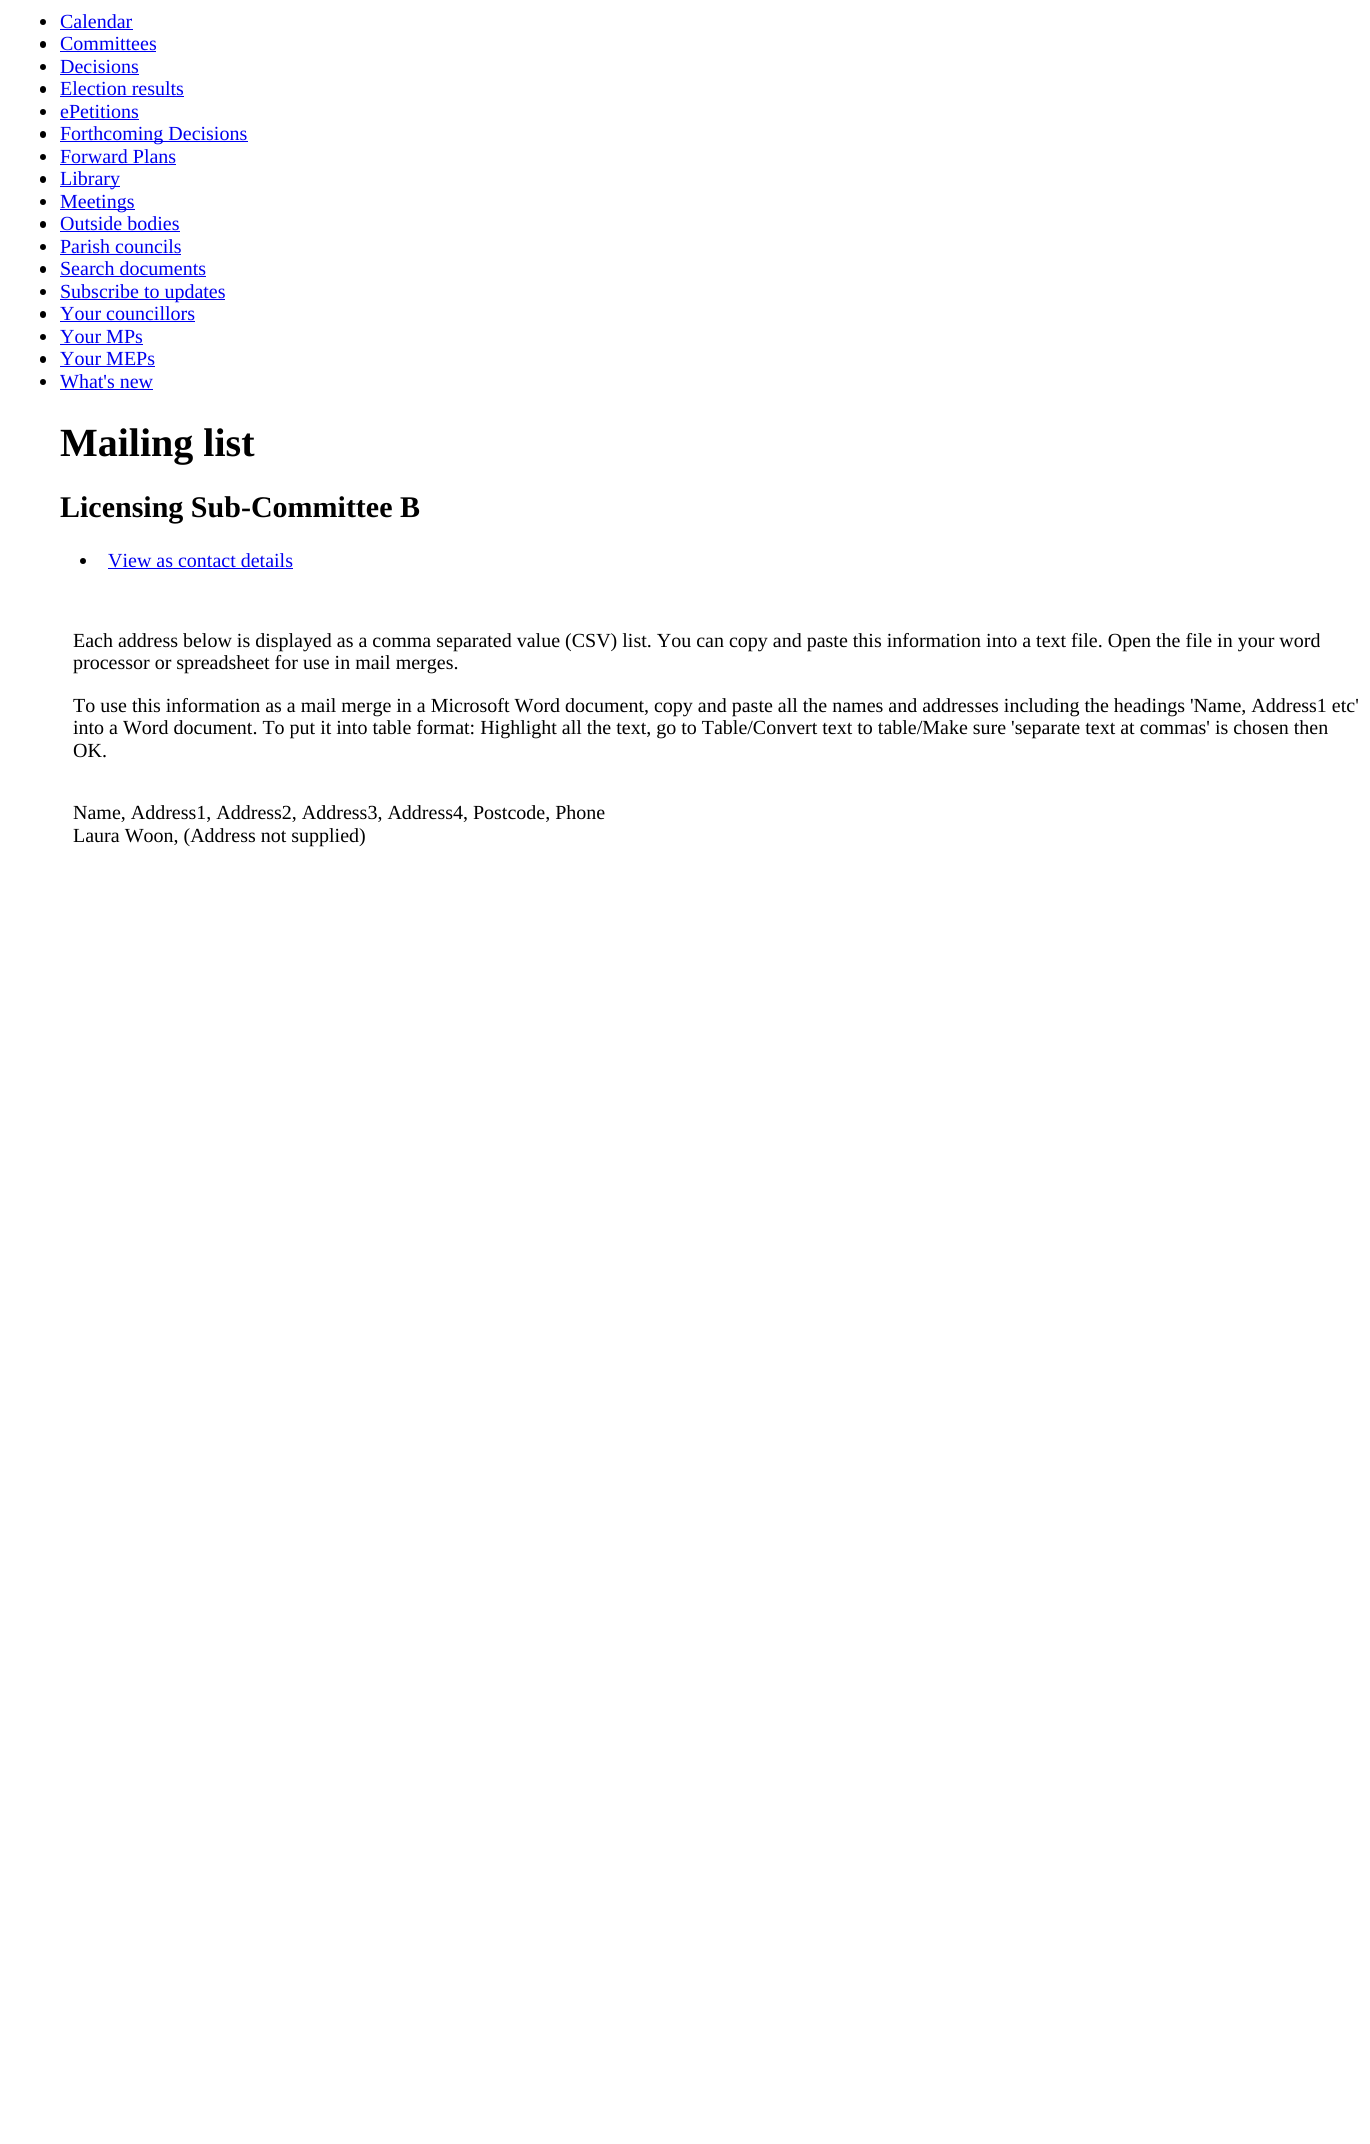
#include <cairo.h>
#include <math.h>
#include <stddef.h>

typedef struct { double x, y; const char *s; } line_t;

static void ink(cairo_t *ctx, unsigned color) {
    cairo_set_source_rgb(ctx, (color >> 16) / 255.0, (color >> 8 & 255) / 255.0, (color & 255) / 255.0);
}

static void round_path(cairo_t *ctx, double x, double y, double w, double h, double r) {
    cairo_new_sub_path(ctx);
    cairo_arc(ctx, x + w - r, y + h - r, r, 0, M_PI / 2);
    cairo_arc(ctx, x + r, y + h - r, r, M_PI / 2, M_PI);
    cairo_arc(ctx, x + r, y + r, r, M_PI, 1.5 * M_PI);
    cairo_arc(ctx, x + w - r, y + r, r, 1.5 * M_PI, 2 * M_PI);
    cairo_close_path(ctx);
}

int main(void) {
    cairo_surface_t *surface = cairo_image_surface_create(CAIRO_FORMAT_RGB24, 1370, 2144);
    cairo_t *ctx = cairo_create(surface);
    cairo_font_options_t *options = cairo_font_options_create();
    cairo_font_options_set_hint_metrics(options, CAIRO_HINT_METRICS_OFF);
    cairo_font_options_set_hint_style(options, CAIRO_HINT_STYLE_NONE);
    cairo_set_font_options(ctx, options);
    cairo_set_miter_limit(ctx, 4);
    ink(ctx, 0xFFFFFF);
    cairo_paint(ctx);
    ink(ctx, 0x000000);
    cairo_arc(ctx, 43, 22, 3, 0, 2 * M_PI);
    cairo_fill(ctx);
    cairo_select_font_face(ctx, "Liberation Serif", CAIRO_FONT_SLANT_NORMAL, CAIRO_FONT_WEIGHT_NORMAL);
    cairo_set_font_size(ctx, 20);
    ink(ctx, 0x0000EE);
    cairo_move_to(ctx, 60, 28);
    cairo_show_text(ctx, "Calendar");
    cairo_rectangle(ctx, 60, 29, 73, 1);
    cairo_fill(ctx);
    ink(ctx, 0x000000);
    round_path(ctx, 40, 41, 6, 7, 3);
    cairo_fill(ctx);
    ink(ctx, 0x0000EE);
    cairo_move_to(ctx, 60, 50);
    cairo_show_text(ctx, "Committees");
    cairo_rectangle(ctx, 60, 51, 96, 1);
    cairo_fill(ctx);
    ink(ctx, 0x000000);
    cairo_arc(ctx, 43, 67, 3, 0, 2 * M_PI);
    cairo_fill(ctx);
    ink(ctx, 0x0000EE);
    cairo_move_to(ctx, 60, 73);
    cairo_show_text(ctx, "Decisions");
    cairo_rectangle(ctx, 60, 74, 79, 1);
    cairo_fill(ctx);
    ink(ctx, 0x000000);
    round_path(ctx, 40, 86, 6, 7, 3);
    cairo_fill(ctx);
    ink(ctx, 0x0000EE);
    cairo_move_to(ctx, 60, 95);
    cairo_show_text(ctx, "Election results");
    cairo_rectangle(ctx, 60, 96, 124, 1);
    cairo_fill(ctx);
    ink(ctx, 0x000000);
    cairo_arc(ctx, 43, 112, 3, 0, 2 * M_PI);
    cairo_fill(ctx);
    ink(ctx, 0x0000EE);
    cairo_move_to(ctx, 60, 118);
    cairo_show_text(ctx, "ePetitions");
    cairo_rectangle(ctx, 60, 119, 79, 1);
    cairo_fill(ctx);
    ink(ctx, 0x000000);
    round_path(ctx, 40, 131, 6, 7, 3);
    cairo_fill(ctx);
    ink(ctx, 0x0000EE);
    cairo_rectangle(ctx, 60, 141, 188, 1);
    cairo_fill(ctx);
    cairo_move_to(ctx, 60, 140);
    cairo_show_text(ctx, "Forthcoming Decisions");
    ink(ctx, 0x000000);
    cairo_new_path(ctx);
    cairo_arc(ctx, 43, 157, 3, 0, 2 * M_PI);
    cairo_fill(ctx);
    ink(ctx, 0x0000EE);
    cairo_move_to(ctx, 60, 163);
    cairo_show_text(ctx, "Forward Plans");
    cairo_rectangle(ctx, 60, 164, 116, 1);
    cairo_fill(ctx);
    ink(ctx, 0x000000);
    round_path(ctx, 40, 176, 6, 7, 3);
    cairo_fill(ctx);
    ink(ctx, 0x0000EE);
    cairo_rectangle(ctx, 60, 186, 60, 1);
    cairo_fill(ctx);
    cairo_move_to(ctx, 60, 185);
    cairo_show_text(ctx, "Library");
    ink(ctx, 0x000000);
    cairo_new_path(ctx);
    cairo_arc(ctx, 43, 202, 3, 0, 2 * M_PI);
    cairo_fill(ctx);
    ink(ctx, 0x0000EE);
    cairo_rectangle(ctx, 60, 209, 75, 1);
    cairo_fill(ctx);
    cairo_move_to(ctx, 60, 208);
    cairo_show_text(ctx, "Meetings");
    ink(ctx, 0x000000);
    round_path(ctx, 40, 221, 6, 7, 3);
    cairo_fill(ctx);
    ink(ctx, 0x0000EE);
    cairo_move_to(ctx, 60, 230);
    cairo_show_text(ctx, "Outside bodies");
    cairo_rectangle(ctx, 60, 231, 120, 1);
    cairo_fill(ctx);
    ink(ctx, 0x000000);
    cairo_arc(ctx, 43, 247, 3, 0, 2 * M_PI);
    cairo_fill(ctx);
    ink(ctx, 0x0000EE);
    cairo_move_to(ctx, 60, 253);
    cairo_show_text(ctx, "Parish councils");
    cairo_rectangle(ctx, 60, 254, 121, 1);
    cairo_fill(ctx);
    ink(ctx, 0x000000);
    round_path(ctx, 40, 266, 6, 7, 3);
    cairo_fill(ctx);
    ink(ctx, 0x0000EE);
    cairo_move_to(ctx, 60, 275);
    cairo_show_text(ctx, "Search documents");
    cairo_rectangle(ctx, 60, 276, 146, 1);
    cairo_fill(ctx);
    ink(ctx, 0x000000);
    cairo_arc(ctx, 43, 292, 3, 0, 2 * M_PI);
    cairo_fill(ctx);
    ink(ctx, 0x0000EE);
    cairo_rectangle(ctx, 60, 299, 165, 1);
    cairo_fill(ctx);
    cairo_move_to(ctx, 60, 298);
    cairo_show_text(ctx, "Subscribe to updates");
    ink(ctx, 0x000000);
    round_path(ctx, 40, 311, 6, 7, 3);
    cairo_fill(ctx);
    ink(ctx, 0x0000EE);
    cairo_move_to(ctx, 60, 320);
    cairo_show_text(ctx, "Your councillors");
    cairo_rectangle(ctx, 60, 321, 135, 1);
    cairo_fill(ctx);
    ink(ctx, 0x000000);
    cairo_arc(ctx, 43, 337, 3, 0, 2 * M_PI);
    cairo_fill(ctx);
    ink(ctx, 0x0000EE);
    cairo_move_to(ctx, 60, 343);
    cairo_show_text(ctx, "Your MPs");
    cairo_rectangle(ctx, 60, 344, 83, 1);
    cairo_fill(ctx);
    ink(ctx, 0x000000);
    round_path(ctx, 40, 356, 6, 7, 3);
    cairo_fill(ctx);
    ink(ctx, 0x0000EE);
    cairo_move_to(ctx, 60, 365);
    cairo_show_text(ctx, "Your MEPs");
    cairo_rectangle(ctx, 60, 366, 95, 1);
    cairo_fill(ctx);
    ink(ctx, 0x000000);
    cairo_arc(ctx, 43, 382, 3, 0, 2 * M_PI);
    cairo_fill(ctx);
    ink(ctx, 0x0000EE);
    cairo_move_to(ctx, 60, 388);
    cairo_show_text(ctx, "What's new");
    cairo_rectangle(ctx, 60, 389, 93, 1);
    cairo_fill(ctx);
    cairo_select_font_face(ctx, "Liberation Serif", CAIRO_FONT_SLANT_NORMAL, CAIRO_FONT_WEIGHT_BOLD);
    cairo_set_font_size(ctx, 40);
    ink(ctx, 0x000000);
    cairo_move_to(ctx, 60, 456);
    cairo_show_text(ctx, "Mailing list");
    cairo_set_font_size(ctx, 30);
    cairo_move_to(ctx, 60, 517);
    cairo_show_text(ctx, "Licensing Sub-Committee B");
    cairo_new_path(ctx);
    cairo_arc(ctx, 83, 561, 3, 0, 2 * M_PI);
    cairo_fill(ctx);
    cairo_select_font_face(ctx, "Liberation Serif", CAIRO_FONT_SLANT_NORMAL, CAIRO_FONT_WEIGHT_NORMAL);
    cairo_set_font_size(ctx, 20);
    ink(ctx, 0x0000EE);
    cairo_move_to(ctx, 108, 567);
    cairo_show_text(ctx, "View as contact details");
    cairo_rectangle(ctx, 108, 568, 185, 1);
    cairo_fill(ctx);
    ink(ctx, 0x000000);
    {
        static const line_t items[] = {
            {73, 647, "Each address below is displayed as a comma separated value (CSV) list. You can copy and paste this information into a text file. Open the file in your word"},
            {73, 669, "processor or spreadsheet for use in mail merges."},
            {73, 712, "To use this information as a mail merge in a Microsoft Word document, copy and paste all the names and addresses including the headings 'Name, Address1 etc'"},
            {73, 734, "into a Word document. To put it into table format: Highlight all the text, go to Table/Convert text to table/Make sure 'separate text at commas' is chosen then"},
            {73, 757, "OK."},
            {73, 819, "Name, Address1, Address2, Address3, Address4, Postcode, Phone"},
            {73, 842, "Laura Woon, (Address not supplied)"},
        };
        for (size_t i = 0; i < sizeof items / sizeof *items; i++) {
            cairo_move_to(ctx, items[i].x, items[i].y);
            cairo_show_text(ctx, items[i].s);
        }
    }
    cairo_surface_write_to_png(surface, "image.png");
    cairo_font_options_destroy(options);
    cairo_destroy(ctx);
    cairo_surface_destroy(surface);
    return 0;
}
